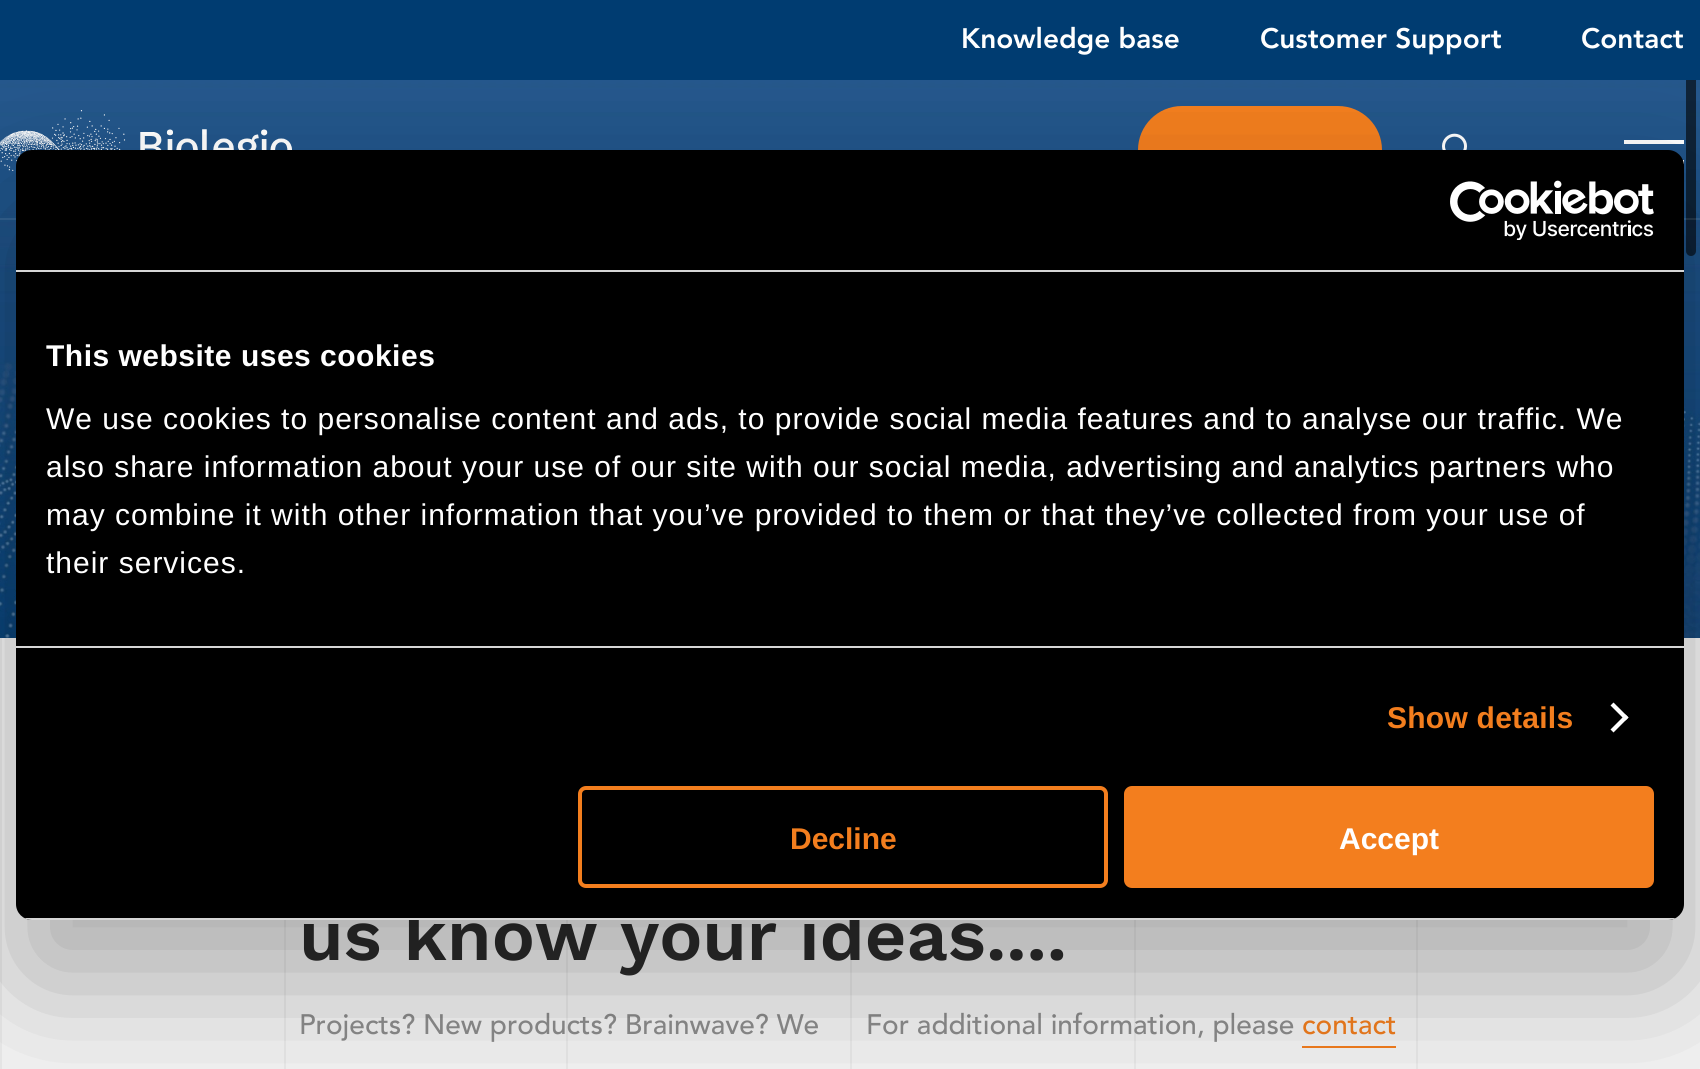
#include <cairo.h>
#include <math.h>
#include <stddef.h>

typedef struct { double x, y; const char *s; } line_t;

static void ink(cairo_t *ctx, unsigned color) {
    cairo_set_source_rgb(ctx, (color >> 16) / 255.0, (color >> 8 & 255) / 255.0, (color & 255) / 255.0);
}

static void write_spaced(cairo_t *ctx, double x, double y, const char *s, double letter, double word) {
    cairo_move_to(ctx, x, y);
    while (*s) {
        char ch[5] = {0};
        int n = 0;
        do ch[n++] = *s++; while ((*s & 0xC0) == 0x80);
        cairo_show_text(ctx, ch);
        cairo_rel_move_to(ctx, letter + word * (*ch == ' '), 0);
    }
}

static void round_path(cairo_t *ctx, double x, double y, double w, double h, double r) {
    cairo_new_sub_path(ctx);
    cairo_arc(ctx, x + w - r, y + h - r, r, 0, M_PI / 2);
    cairo_arc(ctx, x + r, y + h - r, r, M_PI / 2, M_PI);
    cairo_arc(ctx, x + r, y + r, r, M_PI, 1.5 * M_PI);
    cairo_arc(ctx, x + w - r, y + r, r, 1.5 * M_PI, 2 * M_PI);
    cairo_close_path(ctx);
}

static void blur_box(cairo_t *ctx, double x, double y, double w, double h, double r, double blur, double alpha) {
    cairo_push_group_with_content(ctx, CAIRO_CONTENT_ALPHA);
    cairo_set_operator(ctx, CAIRO_OPERATOR_SOURCE);
    for (int i = 15; i >= -15 && fmin(w, h) + blur * i / 3 > 0; i -= 2) {
        double e = blur * i / 6;
        cairo_set_source_rgba(ctx, 0, 0, 0, alpha * erfc((i - 1) / 8.5) / 2);
        round_path(ctx, x - e, y - e, w + 2 * e, h + 2 * e, fmax(0, fmin(r + e + blur * .6, fmin(w, h) / 2 + e)));
        cairo_fill(ctx);
    }
    cairo_pattern_t *soft = cairo_pop_group(ctx);
    cairo_mask(ctx, soft);
    cairo_pattern_destroy(soft);
}

static void paste(cairo_t *ctx, const char *path, double x, double y, double w, double h) {
    cairo_surface_t *image = cairo_image_surface_create_from_png(path);
    cairo_save(ctx);
    cairo_set_source_surface(ctx, image, x, y);
    cairo_rectangle(ctx, x, y, w, h);
    cairo_fill(ctx);
    cairo_restore(ctx);
    cairo_surface_destroy(image);
}

int main(void) {
    cairo_surface_t *surface = cairo_image_surface_create(CAIRO_FORMAT_RGB24, 1700, 1069);
    cairo_t *ctx = cairo_create(surface);
    cairo_font_options_t *options = cairo_font_options_create();
    cairo_font_options_set_hint_metrics(options, CAIRO_HINT_METRICS_OFF);
    cairo_font_options_set_hint_style(options, CAIRO_HINT_STYLE_NONE);
    cairo_set_font_options(ctx, options);
    cairo_set_miter_limit(ctx, 4);
    ink(ctx, 0xF5F5F5);
    cairo_paint(ctx);
    ink(ctx, 0xEAEAEA);
    cairo_rectangle(ctx, 0, 636, 2, 433);
    cairo_fill(ctx);
    paste(ctx, "media/3.png", 0, 80, 1700, 558);
    cairo_set_source_rgba(ctx, 0, 0, 0, 0.6);
    round_path(ctx, 1686, 4, 10, 252, 5);
    cairo_fill(ctx);
    ink(ctx, 0x003C71);
    cairo_rectangle(ctx, 0, 0, 1700, 80);
    cairo_fill(ctx);
    cairo_select_font_face(ctx, "Avenir Black", CAIRO_FONT_SLANT_NORMAL, CAIRO_FONT_WEIGHT_NORMAL);
    cairo_set_font_size(ctx, 28);
    ink(ctx, 0xFFFFFF);
    {
        static const line_t items[] = {
            {961, 48, "Knowledge base"},
            {1260, 48, "Customer Support"},
            {1581, 48, "Contact"},
        };
        for (size_t i = 0; i < sizeof items / sizeof *items; i++) {
            cairo_move_to(ctx, items[i].x, items[i].y);
            cairo_show_text(ctx, items[i].s);
        }
    }
    paste(ctx, "media/1.png", 0, 110, 292, 61);
    ink(ctx, 0xF37E1E);
    round_path(ctx, 1138, 106, 244, 88, 44);
    cairo_fill(ctx);
    paste(ctx, "media/2.png", 1442, 133, 25, 17);
    ink(ctx, 0xFFFFFF);
    cairo_rectangle(ctx, 1624, 140, 60, 4);
    cairo_fill(ctx);
    cairo_rectangle(ctx, 1682, 160, 2, 4);
    cairo_fill(ctx);
    cairo_set_source_rgba(ctx, 1, 1, 1, 0.1);
    cairo_rectangle(ctx, 0, 218, 1700, 2);
    cairo_fill(ctx);
    ink(ctx, 0xEAEAEA);
    cairo_rectangle(ctx, 1416, 920, 2, 149);
    cairo_fill(ctx);
    cairo_rectangle(ctx, 1134, 920, 2, 149);
    cairo_fill(ctx);
    cairo_rectangle(ctx, 850, 920, 2, 149);
    cairo_fill(ctx);
    cairo_rectangle(ctx, 566, 920, 2, 149);
    cairo_fill(ctx);
    cairo_rectangle(ctx, 284, 920, 2, 149);
    cairo_fill(ctx);
    cairo_select_font_face(ctx, "Work Sans SemiBold", CAIRO_FONT_SLANT_NORMAL, CAIRO_FONT_WEIGHT_NORMAL);
    cairo_set_font_size(ctx, 72);
    ink(ctx, 0x2B2B2B);
    cairo_move_to(ctx, 299, 960);
    cairo_show_text(ctx, "us know your ideas....");
    cairo_select_font_face(ctx, "Avenir Medium", CAIRO_FONT_SLANT_NORMAL, CAIRO_FONT_WEIGHT_NORMAL);
    cairo_set_font_size(ctx, 28);
    ink(ctx, 0x8E8E8E);
    cairo_move_to(ctx, 299, 1034);
    cairo_show_text(ctx, "Projects? New products? Brainwave? We");
    cairo_move_to(ctx, 866, 1034);
    cairo_show_text(ctx, "For additional information, please");
    ink(ctx, 0xF37E1E);
    cairo_move_to(ctx, 1302, 1034);
    cairo_show_text(ctx, "contact");
    cairo_rectangle(ctx, 1302, 1046, 94, 2);
    cairo_fill(ctx);
    ink(ctx, 0x000000);
    blur_box(ctx, 16, 214, 1668, 770, 16, 68, 0.3);
    ink(ctx, 0x000000);
    round_path(ctx, 16, 150, 1668, 770, 16);
    cairo_fill(ctx);
    ink(ctx, 0xD6D6D6);
    cairo_rectangle(ctx, 16, 270, 1668, 2);
    cairo_fill(ctx);
    paste(ctx, "media/4.png", 1450, 180, 204, 60);
    cairo_rectangle(ctx, 16, 646, 1668, 2);
    cairo_fill(ctx);
    cairo_select_font_face(ctx, "Liberation Sans", CAIRO_FONT_SLANT_NORMAL, CAIRO_FONT_WEIGHT_BOLD);
    cairo_set_font_size(ctx, 30);
    ink(ctx, 0xFFFFFF);
    write_spaced(ctx, 46, 366, "This website uses cookies", 0.5, 0);
    cairo_select_font_face(ctx, "Liberation Sans", CAIRO_FONT_SLANT_NORMAL, CAIRO_FONT_WEIGHT_NORMAL);
    {
        static const line_t items[] = {
            {46, 429, "We use cookies to personalise content and ads, to provide social media features and to analyse our traffic. We"},
            {46, 477, "also share information about your use of our site with our social media, advertising and analytics partners who"},
            {46, 525, "may combine it with other information that you’ve provided to them or that they’ve collected from your use of"},
            {46, 573, "their services."},
        };
        for (size_t i = 0; i < sizeof items / sizeof *items; i++) {
            write_spaced(ctx, items[i].x, items[i].y, items[i].s, 1, 0);
        }
    }
    cairo_select_font_face(ctx, "Liberation Sans", CAIRO_FONT_SLANT_NORMAL, CAIRO_FONT_WEIGHT_BOLD);
    ink(ctx, 0xF37E1E);
    write_spaced(ctx, 1387, 728, "Show details", 0.25, 0);
    ink(ctx, 0xFFFFFF);
    cairo_new_path(ctx);
    cairo_move_to(ctx, 1613.5, 702.5);
    cairo_line_to(ctx, 1628.5, 717.5);
    cairo_line_to(ctx, 1625.5, 720.5);
    cairo_line_to(ctx, 1610.5, 705.5);
    cairo_close_path(ctx);
    cairo_fill(ctx);
    cairo_new_path(ctx);
    cairo_move_to(ctx, 1625.5, 714.5);
    cairo_line_to(ctx, 1628.5, 717.5);
    cairo_line_to(ctx, 1613.5, 732.5);
    cairo_line_to(ctx, 1610.5, 729.5);
    cairo_close_path(ctx);
    cairo_fill(ctx);
    cairo_save(ctx);
    round_path(ctx, 16, 150, 1668, 770, 16);
    cairo_clip(ctx);
    ink(ctx, 0xD6D6D6);
    cairo_rectangle(ctx, 16, 918, 1668, 2);
    cairo_fill(ctx);
    cairo_restore(ctx);
    round_path(ctx, 580, 788, 526, 98, 6);
    ink(ctx, 0xF37E1E);
    cairo_set_line_width(ctx, 4);
    cairo_stroke(ctx);
    cairo_move_to(ctx, 790, 849);
    cairo_show_text(ctx, "Decline");
    round_path(ctx, 1126, 788, 526, 98, 6);
    cairo_fill_preserve(ctx);
    cairo_stroke(ctx);
    ink(ctx, 0xFFFFFF);
    cairo_move_to(ctx, 1339, 849);
    cairo_show_text(ctx, "Accept");
    cairo_surface_write_to_png(surface, "image.png");
    cairo_font_options_destroy(options);
    cairo_destroy(ctx);
    cairo_surface_destroy(surface);
    return 0;
}
